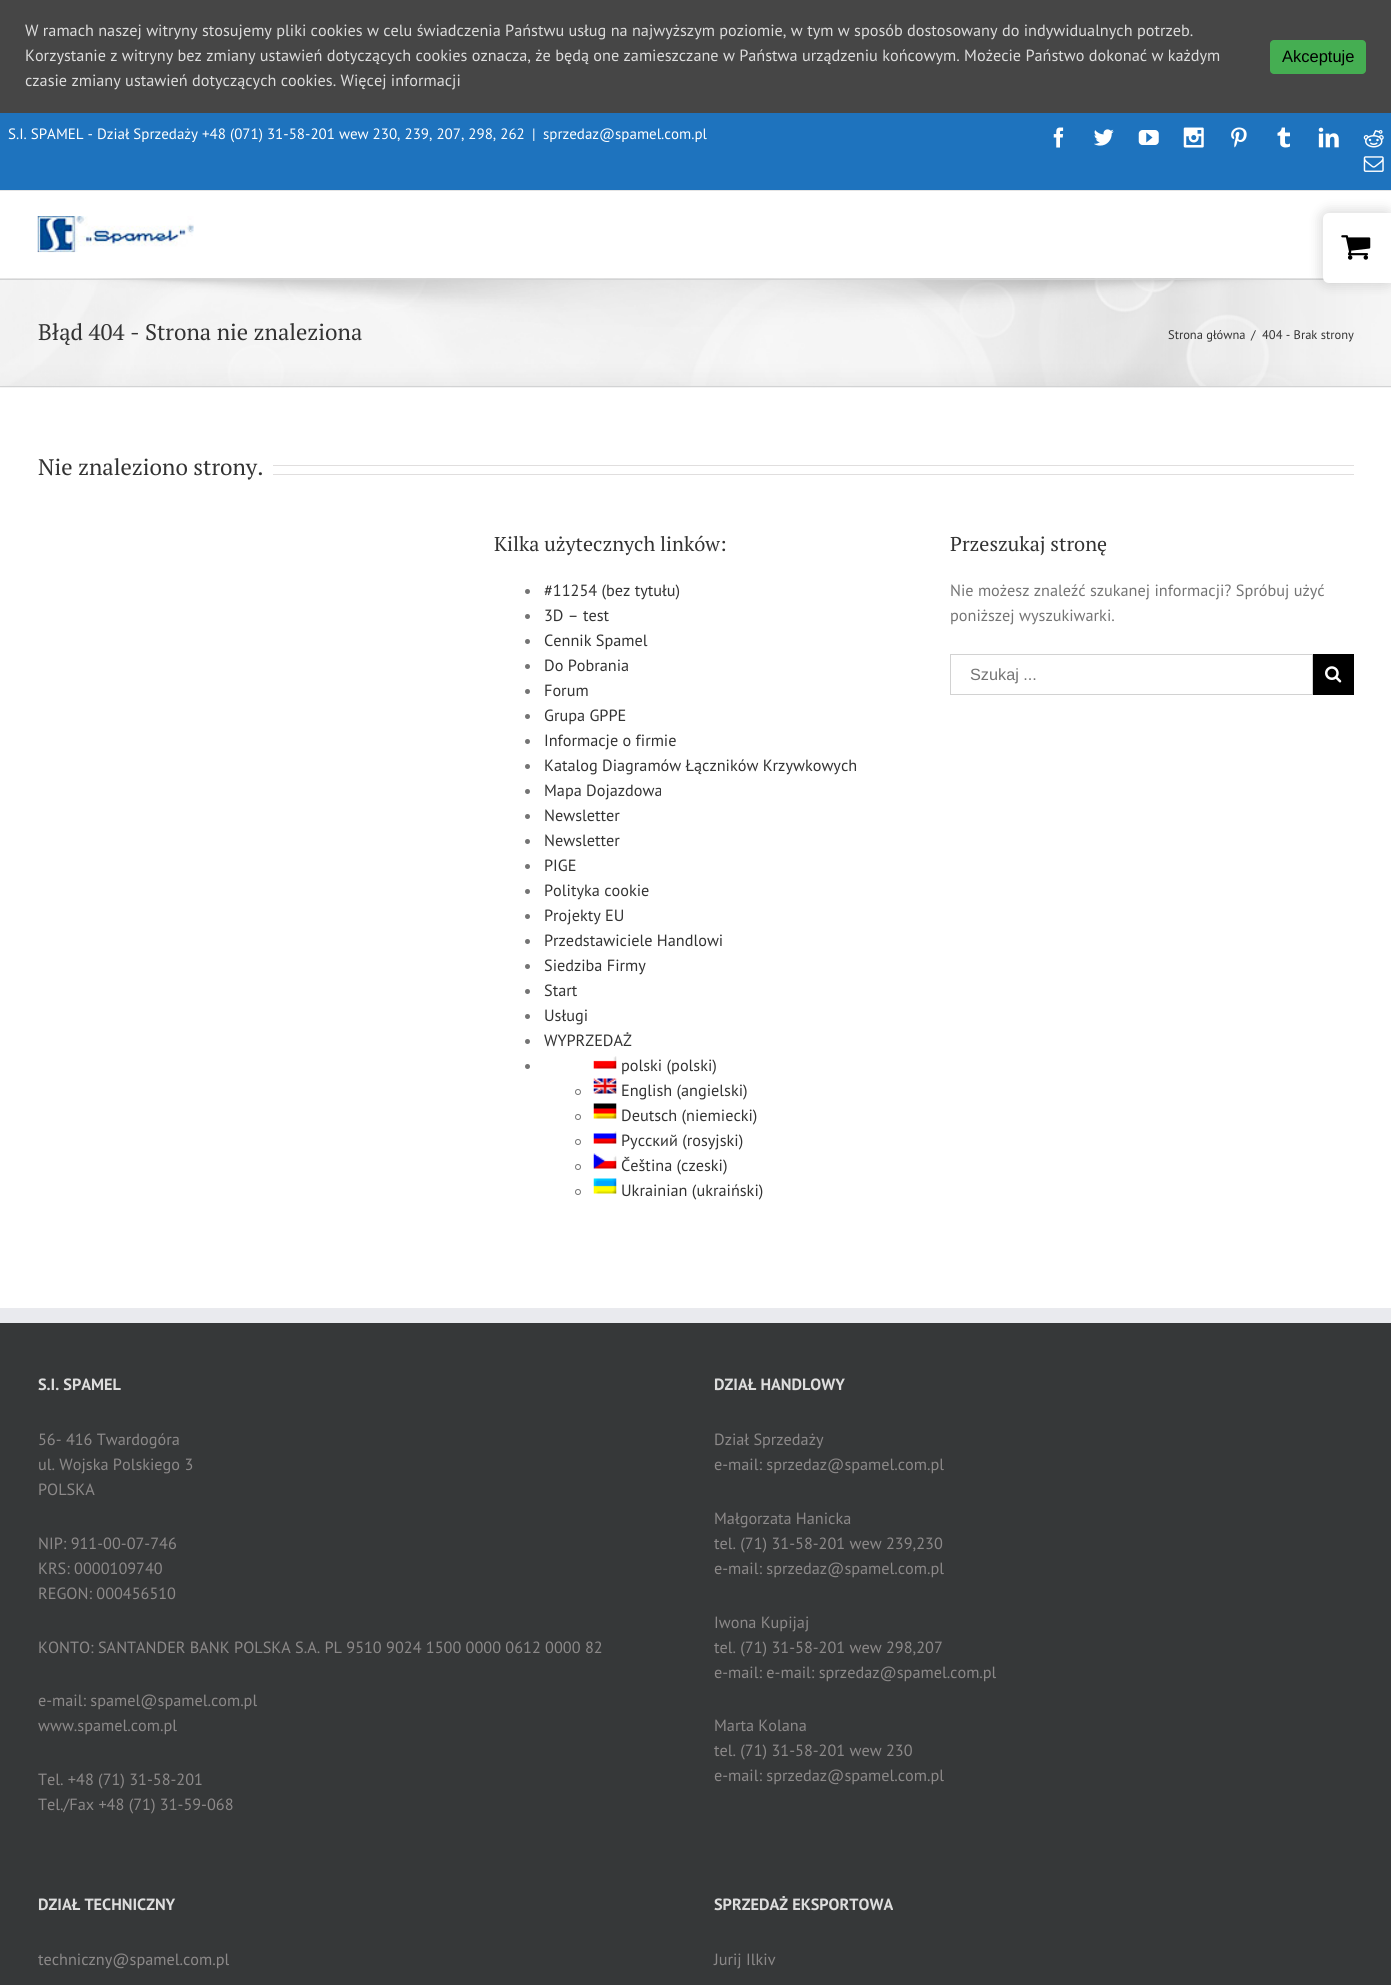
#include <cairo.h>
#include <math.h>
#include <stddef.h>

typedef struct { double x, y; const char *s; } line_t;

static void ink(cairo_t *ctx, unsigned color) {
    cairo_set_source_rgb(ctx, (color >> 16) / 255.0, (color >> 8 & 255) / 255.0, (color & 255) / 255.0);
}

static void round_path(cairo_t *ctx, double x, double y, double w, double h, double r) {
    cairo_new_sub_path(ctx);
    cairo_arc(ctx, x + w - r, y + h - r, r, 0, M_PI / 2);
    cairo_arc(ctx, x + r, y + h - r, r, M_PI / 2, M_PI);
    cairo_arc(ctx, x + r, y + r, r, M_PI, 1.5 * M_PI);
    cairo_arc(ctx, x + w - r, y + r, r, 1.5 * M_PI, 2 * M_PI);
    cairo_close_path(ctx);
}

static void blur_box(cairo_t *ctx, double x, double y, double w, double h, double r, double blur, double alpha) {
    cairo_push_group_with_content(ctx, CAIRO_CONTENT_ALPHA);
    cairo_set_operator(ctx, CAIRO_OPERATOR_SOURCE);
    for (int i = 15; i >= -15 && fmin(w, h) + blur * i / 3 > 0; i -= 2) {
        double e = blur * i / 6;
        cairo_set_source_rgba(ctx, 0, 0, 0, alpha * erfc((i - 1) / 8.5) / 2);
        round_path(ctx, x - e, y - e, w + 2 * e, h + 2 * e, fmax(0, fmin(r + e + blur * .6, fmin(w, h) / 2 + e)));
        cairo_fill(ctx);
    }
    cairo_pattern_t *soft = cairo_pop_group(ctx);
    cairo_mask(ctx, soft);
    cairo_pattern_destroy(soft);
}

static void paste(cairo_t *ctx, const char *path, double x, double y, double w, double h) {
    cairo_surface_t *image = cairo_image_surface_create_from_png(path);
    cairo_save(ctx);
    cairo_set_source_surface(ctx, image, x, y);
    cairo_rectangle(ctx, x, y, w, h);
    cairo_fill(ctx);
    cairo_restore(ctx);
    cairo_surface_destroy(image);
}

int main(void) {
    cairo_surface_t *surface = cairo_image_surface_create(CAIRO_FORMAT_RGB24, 1391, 1985);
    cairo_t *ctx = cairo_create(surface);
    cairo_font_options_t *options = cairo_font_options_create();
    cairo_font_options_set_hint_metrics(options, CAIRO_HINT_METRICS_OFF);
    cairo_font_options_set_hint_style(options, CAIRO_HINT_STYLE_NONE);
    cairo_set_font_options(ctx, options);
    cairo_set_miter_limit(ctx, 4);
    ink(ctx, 0xFFFFFF);
    cairo_paint(ctx);
    ink(ctx, 0x464646);
    cairo_rectangle(ctx, 0, 0, 1391, 113);
    cairo_fill(ctx);
    cairo_select_font_face(ctx, "PT Sans", CAIRO_FONT_SLANT_NORMAL, CAIRO_FONT_WEIGHT_NORMAL);
    cairo_set_font_size(ctx, 16.25);
    ink(ctx, 0xDDDDDD);
    {
        static const line_t items[] = {
            {25, 36, "W ramach naszej witryny stosujemy pliki cookies w celu świadczenia Państwu usług na najwyższym poziomie, w tym w sposób dostosowany do indywidualnych potrzeb."},
            {25, 61, "Korzystanie z witryny bez zmiany ustawień dotyczących cookies oznacza, że będą one zamieszczane w Państwa urządzeniu końcowym. Możecie Państwo dokonać w każdym"},
            {25, 86, "czasie zmiany ustawień dotyczących cookies. Więcej informacji"},
        };
        for (size_t i = 0; i < sizeof items / sizeof *items; i++) {
            cairo_move_to(ctx, items[i].x, items[i].y);
            cairo_show_text(ctx, items[i].s);
        }
    }
    ink(ctx, 0x45AE52);
    round_path(ctx, 1270, 40, 96, 34, 4);
    cairo_fill(ctx);
    cairo_select_font_face(ctx, "Liberation Sans", CAIRO_FONT_SLANT_NORMAL, CAIRO_FONT_WEIGHT_NORMAL);
    cairo_set_font_size(ctx, 16.5);
    ink(ctx, 0x000000);
    cairo_move_to(ctx, 1282, 62);
    cairo_show_text(ctx, "Akceptuje");
    ink(ctx, 0x1E73BE);
    cairo_rectangle(ctx, 0, 113, 1391, 77);
    cairo_fill(ctx);
    ink(ctx, 0xE5E5E5);
    cairo_rectangle(ctx, 0, 190, 1391, 1);
    cairo_fill(ctx);
    cairo_select_font_face(ctx, "PT Sans", CAIRO_FONT_SLANT_NORMAL, CAIRO_FONT_WEIGHT_NORMAL);
    cairo_set_font_size(ctx, 15);
    ink(ctx, 0xFFFFFF);
    {
        static const line_t items[] = {
            {8, 139, "S.I. SPAMEL - Dział Sprzedaży +48 (071) 31-58-201 wew 230, 239, 207, 298, 262"},
            {532, 139, "|"},
            {543, 139, "sprzedaz@spamel.com.pl"},
        };
        for (size_t i = 0; i < sizeof items / sizeof *items; i++) {
            cairo_move_to(ctx, items[i].x, items[i].y);
            cairo_show_text(ctx, items[i].s);
        }
    }
    paste(ctx, "media/1.png", 1053, 127, 11, 21);
    paste(ctx, "media/2.png", 1094, 129, 20, 17);
    paste(ctx, "media/3.png", 1138, 130, 21, 15);
    paste(ctx, "media/4.png", 1183, 127, 21, 21);
    paste(ctx, "media/5.png", 1231, 127, 16, 21);
    paste(ctx, "media/6.png", 1277, 127, 13, 21);
    paste(ctx, "media/7.png", 1318, 127, 21, 21);
    paste(ctx, "media/8.png", 1363, 130, 21, 18);
    paste(ctx, "media/9.png", 1363, 156, 21, 16);
    ink(ctx, 0xE5E5E5);
    cairo_rectangle(ctx, 0, 278, 1324, 1);
    cairo_fill(ctx);
    paste(ctx, "media/10.png", 37, 216, 157, 37);
    ink(ctx, 0xF6F6F6);
    cairo_rectangle(ctx, 0, 280, 1391, 108);
    cairo_fill(ctx);
    paste(ctx, "media/11.png", 0, 278, 1391, 110);
    ink(ctx, 0xD2D3D4);
    cairo_rectangle(ctx, 0, 279, 1324, 1);
    cairo_fill(ctx);
    cairo_rectangle(ctx, 0, 386, 1391, 1);
    cairo_fill(ctx);
    cairo_select_font_face(ctx, "PT Serif", CAIRO_FONT_SLANT_NORMAL, CAIRO_FONT_WEIGHT_NORMAL);
    cairo_set_font_size(ctx, 22.5);
    ink(ctx, 0x333333);
    cairo_move_to(ctx, 38, 340);
    cairo_show_text(ctx, "Błąd 404 - Strona nie znaleziona");
    cairo_select_font_face(ctx, "PT Sans", CAIRO_FONT_SLANT_NORMAL, CAIRO_FONT_WEIGHT_NORMAL);
    cairo_set_font_size(ctx, 12.5);
    {
        static const line_t items[] = {
            {1168, 339, "Strona główna"},
            {1251, 339, "/"},
            {1262, 339, "404 - Brak strony"},
        };
        for (size_t i = 0; i < sizeof items / sizeof *items; i++) {
            cairo_move_to(ctx, items[i].x, items[i].y);
            cairo_show_text(ctx, items[i].s);
        }
    }
    cairo_select_font_face(ctx, "PT Serif", CAIRO_FONT_SLANT_NORMAL, CAIRO_FONT_WEIGHT_NORMAL);
    cairo_set_font_size(ctx, 22.5);
    cairo_move_to(ctx, 38, 475);
    cairo_show_text(ctx, "Nie znaleziono strony.");
    ink(ctx, 0xE0DEDE);
    cairo_rectangle(ctx, 273, 465, 1081, 1);
    cairo_fill(ctx);
    cairo_rectangle(ctx, 273, 474, 1081, 1);
    cairo_fill(ctx);
    cairo_set_font_size(ctx, 20);
    ink(ctx, 0x333333);
    cairo_move_to(ctx, 494, 551);
    cairo_show_text(ctx, "Kilka użytecznych linków:");
    ink(ctx, 0x747474);
    cairo_new_path(ctx);
    cairo_arc(ctx, 527.5, 591.5, 2.5, 0, 2 * M_PI);
    cairo_fill(ctx);
    cairo_select_font_face(ctx, "PT Sans", CAIRO_FONT_SLANT_NORMAL, CAIRO_FONT_WEIGHT_NORMAL);
    cairo_set_font_size(ctx, 16.25);
    ink(ctx, 0x333333);
    cairo_move_to(ctx, 544, 596);
    cairo_show_text(ctx, "#11254 (bez tytułu)");
    ink(ctx, 0x747474);
    cairo_new_path(ctx);
    cairo_arc(ctx, 527.5, 616.5, 2.5, 0, 2 * M_PI);
    cairo_fill(ctx);
    ink(ctx, 0x333333);
    cairo_move_to(ctx, 544, 621);
    cairo_show_text(ctx, "3D – test");
    ink(ctx, 0x747474);
    cairo_new_path(ctx);
    cairo_arc(ctx, 527.5, 641.5, 2.5, 0, 2 * M_PI);
    cairo_fill(ctx);
    ink(ctx, 0x333333);
    cairo_move_to(ctx, 544, 646);
    cairo_show_text(ctx, "Cennik Spamel");
    ink(ctx, 0x747474);
    cairo_new_path(ctx);
    cairo_arc(ctx, 527.5, 666.5, 2.5, 0, 2 * M_PI);
    cairo_fill(ctx);
    ink(ctx, 0x333333);
    cairo_move_to(ctx, 544, 671);
    cairo_show_text(ctx, "Do Pobrania");
    ink(ctx, 0x747474);
    cairo_new_path(ctx);
    cairo_arc(ctx, 527.5, 691.5, 2.5, 0, 2 * M_PI);
    cairo_fill(ctx);
    ink(ctx, 0x333333);
    cairo_move_to(ctx, 544, 696);
    cairo_show_text(ctx, "Forum");
    ink(ctx, 0x747474);
    cairo_new_path(ctx);
    cairo_arc(ctx, 527.5, 716.5, 2.5, 0, 2 * M_PI);
    cairo_fill(ctx);
    ink(ctx, 0x333333);
    cairo_move_to(ctx, 544, 721);
    cairo_show_text(ctx, "Grupa GPPE");
    ink(ctx, 0x747474);
    cairo_new_path(ctx);
    cairo_arc(ctx, 527.5, 741.5, 2.5, 0, 2 * M_PI);
    cairo_fill(ctx);
    ink(ctx, 0x333333);
    cairo_move_to(ctx, 544, 746);
    cairo_show_text(ctx, "Informacje o firmie");
    ink(ctx, 0x747474);
    cairo_new_path(ctx);
    cairo_arc(ctx, 527.5, 766.5, 2.5, 0, 2 * M_PI);
    cairo_fill(ctx);
    ink(ctx, 0x333333);
    cairo_move_to(ctx, 544, 771);
    cairo_show_text(ctx, "Katalog Diagramów Łączników Krzywkowych");
    ink(ctx, 0x747474);
    cairo_new_path(ctx);
    cairo_arc(ctx, 527.5, 791.5, 2.5, 0, 2 * M_PI);
    cairo_fill(ctx);
    ink(ctx, 0x333333);
    cairo_move_to(ctx, 544, 796);
    cairo_show_text(ctx, "Mapa Dojazdowa");
    ink(ctx, 0x747474);
    cairo_new_path(ctx);
    cairo_arc(ctx, 527.5, 816.5, 2.5, 0, 2 * M_PI);
    cairo_fill(ctx);
    ink(ctx, 0x333333);
    cairo_move_to(ctx, 544, 821);
    cairo_show_text(ctx, "Newsletter");
    ink(ctx, 0x747474);
    cairo_new_path(ctx);
    cairo_arc(ctx, 527.5, 841.5, 2.5, 0, 2 * M_PI);
    cairo_fill(ctx);
    ink(ctx, 0x333333);
    cairo_move_to(ctx, 544, 846);
    cairo_show_text(ctx, "Newsletter");
    ink(ctx, 0x747474);
    cairo_new_path(ctx);
    cairo_arc(ctx, 527.5, 866.5, 2.5, 0, 2 * M_PI);
    cairo_fill(ctx);
    ink(ctx, 0x333333);
    cairo_move_to(ctx, 544, 871);
    cairo_show_text(ctx, "PIGE");
    ink(ctx, 0x747474);
    cairo_new_path(ctx);
    cairo_arc(ctx, 527.5, 891.5, 2.5, 0, 2 * M_PI);
    cairo_fill(ctx);
    ink(ctx, 0x333333);
    cairo_move_to(ctx, 544, 896);
    cairo_show_text(ctx, "Polityka cookie");
    ink(ctx, 0x747474);
    cairo_new_path(ctx);
    cairo_arc(ctx, 527.5, 916.5, 2.5, 0, 2 * M_PI);
    cairo_fill(ctx);
    ink(ctx, 0x333333);
    cairo_move_to(ctx, 544, 921);
    cairo_show_text(ctx, "Projekty EU");
    ink(ctx, 0x747474);
    cairo_new_path(ctx);
    cairo_arc(ctx, 527.5, 941.5, 2.5, 0, 2 * M_PI);
    cairo_fill(ctx);
    ink(ctx, 0x333333);
    cairo_move_to(ctx, 544, 946);
    cairo_show_text(ctx, "Przedstawiciele Handlowi");
    ink(ctx, 0x747474);
    cairo_new_path(ctx);
    cairo_arc(ctx, 527.5, 966.5, 2.5, 0, 2 * M_PI);
    cairo_fill(ctx);
    ink(ctx, 0x333333);
    cairo_move_to(ctx, 544, 971);
    cairo_show_text(ctx, "Siedziba Firmy");
    ink(ctx, 0x747474);
    cairo_new_path(ctx);
    cairo_arc(ctx, 527.5, 991.5, 2.5, 0, 2 * M_PI);
    cairo_fill(ctx);
    ink(ctx, 0x333333);
    cairo_move_to(ctx, 544, 996);
    cairo_show_text(ctx, "Start");
    ink(ctx, 0x747474);
    cairo_new_path(ctx);
    cairo_arc(ctx, 527.5, 1016.5, 2.5, 0, 2 * M_PI);
    cairo_fill(ctx);
    ink(ctx, 0x333333);
    cairo_move_to(ctx, 544, 1021);
    cairo_show_text(ctx, "Usługi");
    ink(ctx, 0x747474);
    cairo_new_path(ctx);
    cairo_arc(ctx, 527.5, 1041.5, 2.5, 0, 2 * M_PI);
    cairo_fill(ctx);
    ink(ctx, 0x333333);
    cairo_move_to(ctx, 544, 1046);
    cairo_show_text(ctx, "WYPRZEDAŻ");
    ink(ctx, 0x747474);
    cairo_new_path(ctx);
    cairo_arc(ctx, 527.5, 1066.5, 2.5, 0, 2 * M_PI);
    cairo_fill(ctx);
    paste(ctx, "media/12.png", 593, 1056, 24, 13);
    ink(ctx, 0x333333);
    cairo_move_to(ctx, 621, 1071);
    cairo_show_text(ctx, "polski (polski)");
    cairo_new_path(ctx);
    cairo_arc(ctx, 578, 1092, 2.5, 0, 2 * M_PI);
    ink(ctx, 0x747474);
    cairo_set_line_width(ctx, 1);
    cairo_stroke(ctx);
    paste(ctx, "media/13.png", 593, 1078, 24, 16);
    ink(ctx, 0x333333);
    cairo_move_to(ctx, 621, 1096);
    cairo_show_text(ctx, "English (angielski)");
    cairo_new_path(ctx);
    cairo_arc(ctx, 578, 1117, 2.5, 0, 2 * M_PI);
    ink(ctx, 0x747474);
    cairo_stroke(ctx);
    paste(ctx, "media/14.png", 593, 1103, 24, 16);
    ink(ctx, 0x333333);
    cairo_move_to(ctx, 621, 1121);
    cairo_show_text(ctx, "Deutsch (niemiecki)");
    cairo_new_path(ctx);
    cairo_arc(ctx, 578, 1142, 2.5, 0, 2 * M_PI);
    ink(ctx, 0x747474);
    cairo_stroke(ctx);
    paste(ctx, "media/15.png", 593, 1131, 24, 13);
    ink(ctx, 0x333333);
    cairo_move_to(ctx, 621, 1146);
    cairo_show_text(ctx, "Русский (rosyjski)");
    cairo_new_path(ctx);
    cairo_arc(ctx, 578, 1167, 2.5, 0, 2 * M_PI);
    ink(ctx, 0x747474);
    cairo_stroke(ctx);
    paste(ctx, "media/16.png", 593, 1153, 24, 16);
    ink(ctx, 0x333333);
    cairo_move_to(ctx, 621, 1171);
    cairo_show_text(ctx, "Čeština (czeski)");
    cairo_new_path(ctx);
    cairo_arc(ctx, 578, 1192, 2.5, 0, 2 * M_PI);
    ink(ctx, 0x747474);
    cairo_stroke(ctx);
    paste(ctx, "media/17.png", 593, 1178, 24, 16);
    ink(ctx, 0x333333);
    cairo_move_to(ctx, 621, 1196);
    cairo_show_text(ctx, "Ukrainian (ukraiński)");
    cairo_select_font_face(ctx, "PT Serif", CAIRO_FONT_SLANT_NORMAL, CAIRO_FONT_WEIGHT_NORMAL);
    cairo_set_font_size(ctx, 20);
    cairo_move_to(ctx, 950, 551);
    cairo_show_text(ctx, "Przeszukaj stronę");
    cairo_select_font_face(ctx, "PT Sans", CAIRO_FONT_SLANT_NORMAL, CAIRO_FONT_WEIGHT_NORMAL);
    cairo_set_font_size(ctx, 16.25);
    ink(ctx, 0x747474);
    cairo_move_to(ctx, 950, 596);
    cairo_show_text(ctx, "Nie możesz znaleźć szukanej informacji? Spróbuj użyć");
    cairo_move_to(ctx, 950, 621);
    cairo_show_text(ctx, "poniższej wyszukiwarki.");
    cairo_rectangle(ctx, 950.5, 654.5, 362, 40);
    ink(ctx, 0xD2D2D2);
    cairo_stroke(ctx);
    cairo_select_font_face(ctx, "Liberation Sans", CAIRO_FONT_SLANT_NORMAL, CAIRO_FONT_WEIGHT_NORMAL);
    ink(ctx, 0x747474);
    cairo_move_to(ctx, 970, 680);
    cairo_show_text(ctx, "Szukaj ...");
    ink(ctx, 0x000000);
    cairo_rectangle(ctx, 1313, 654, 41, 41);
    cairo_fill(ctx);
    paste(ctx, "media/18.png", 1325, 666, 17, 17);
    ink(ctx, 0x363839);
    cairo_rectangle(ctx, 0, 1323, 1391, 662);
    cairo_fill(ctx);
    ink(ctx, 0xE9EAEE);
    cairo_rectangle(ctx, 0, 1308, 1391, 15);
    cairo_fill(ctx);
    cairo_select_font_face(ctx, "PT Sans", CAIRO_FONT_SLANT_NORMAL, CAIRO_FONT_WEIGHT_BOLD);
    ink(ctx, 0xDDDDDD);
    cairo_move_to(ctx, 38, 1390);
    cairo_show_text(ctx, "S.I. SPAMEL");
    cairo_select_font_face(ctx, "PT Sans", CAIRO_FONT_SLANT_NORMAL, CAIRO_FONT_WEIGHT_NORMAL);
    ink(ctx, 0x8C8989);
    {
        static const line_t items[] = {
            {38, 1445, "56- 416 Twardogóra"},
            {38, 1470, "ul. Wojska Polskiego 3"},
            {38, 1495, "POLSKA"},
            {38, 1549, "NIP: 911-00-07-746"},
            {38, 1574, "KRS: 0000109740"},
            {38, 1599, "REGON: 000456510"},
            {38, 1653, "KONTO: SANTANDER BANK POLSKA S.A. PL 9510 9024 1500 0000 0612 0000 82"},
            {38, 1706, "e-mail: spamel@spamel.com.pl"},
            {38, 1731, "www.spamel.com.pl"},
            {38, 1785, "Tel. +48 (71) 31-58-201"},
            {38, 1810, "Tel./Fax +48 (71) 31-59-068"},
        };
        for (size_t i = 0; i < sizeof items / sizeof *items; i++) {
            cairo_move_to(ctx, items[i].x, items[i].y);
            cairo_show_text(ctx, items[i].s);
        }
    }
    cairo_select_font_face(ctx, "PT Sans", CAIRO_FONT_SLANT_NORMAL, CAIRO_FONT_WEIGHT_BOLD);
    ink(ctx, 0xDDDDDD);
    cairo_move_to(ctx, 714, 1390);
    cairo_show_text(ctx, "DZIAŁ HANDLOWY");
    cairo_select_font_face(ctx, "PT Sans", CAIRO_FONT_SLANT_NORMAL, CAIRO_FONT_WEIGHT_NORMAL);
    ink(ctx, 0x8C8989);
    {
        static const line_t items[] = {
            {714, 1445, "Dział Sprzedaży"},
            {714, 1470, "e-mail: sprzedaz@spamel.com.pl"},
            {714, 1524, "Małgorzata Hanicka"},
            {714, 1549, "tel. (71) 31-58-201 wew 239,230"},
            {714, 1574, "e-mail: sprzedaz@spamel.com.pl"},
            {714, 1628, "Iwona Kupijaj"},
            {714, 1653, "tel. (71) 31-58-201 wew 298,207"},
            {714, 1678, "e-mail: e-mail: sprzedaz@spamel.com.pl"},
            {714, 1731, "Marta Kolana"},
            {714, 1756, "tel. (71) 31-58-201 wew 230"},
            {714, 1781, "e-mail: sprzedaz@spamel.com.pl"},
        };
        for (size_t i = 0; i < sizeof items / sizeof *items; i++) {
            cairo_move_to(ctx, items[i].x, items[i].y);
            cairo_show_text(ctx, items[i].s);
        }
    }
    cairo_select_font_face(ctx, "PT Sans", CAIRO_FONT_SLANT_NORMAL, CAIRO_FONT_WEIGHT_BOLD);
    ink(ctx, 0xDDDDDD);
    cairo_move_to(ctx, 38, 1910);
    cairo_show_text(ctx, "DZIAŁ TECHNICZNY");
    cairo_select_font_face(ctx, "PT Sans", CAIRO_FONT_SLANT_NORMAL, CAIRO_FONT_WEIGHT_NORMAL);
    ink(ctx, 0x8C8989);
    cairo_move_to(ctx, 38, 1965);
    cairo_show_text(ctx, "techniczny@spamel.com.pl");
    cairo_select_font_face(ctx, "PT Sans", CAIRO_FONT_SLANT_NORMAL, CAIRO_FONT_WEIGHT_BOLD);
    ink(ctx, 0xDDDDDD);
    cairo_move_to(ctx, 714, 1910);
    cairo_show_text(ctx, "SPRZEDAŻ EKSPORTOWA");
    cairo_select_font_face(ctx, "PT Sans", CAIRO_FONT_SLANT_NORMAL, CAIRO_FONT_WEIGHT_NORMAL);
    ink(ctx, 0x8C8989);
    cairo_move_to(ctx, 714, 1965);
    cairo_show_text(ctx, "Jurij Ilkiv");
    ink(ctx, 0x000000);
    blur_box(ctx, 1320, 210, 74, 75, 9, 6, 0.14);
    ink(ctx, 0xFFFFFF);
    cairo_new_path(ctx);
    cairo_move_to(ctx, 1329, 213);
    cairo_line_to(ctx, 1391, 213);
    cairo_line_to(ctx, 1391, 283);
    cairo_line_to(ctx, 1329, 283);
    cairo_curve_to(ctx, 1325.5, 283, 1323, 280.5, 1323, 277);
    cairo_line_to(ctx, 1323, 219);
    cairo_curve_to(ctx, 1323, 215.5, 1325.5, 213, 1329, 213);
    cairo_close_path(ctx);
    cairo_fill(ctx);
    paste(ctx, "media/19.png", 1341, 235, 30, 25);
    cairo_surface_write_to_png(surface, "image.png");
    cairo_font_options_destroy(options);
    cairo_destroy(ctx);
    cairo_surface_destroy(surface);
    return 0;
}
